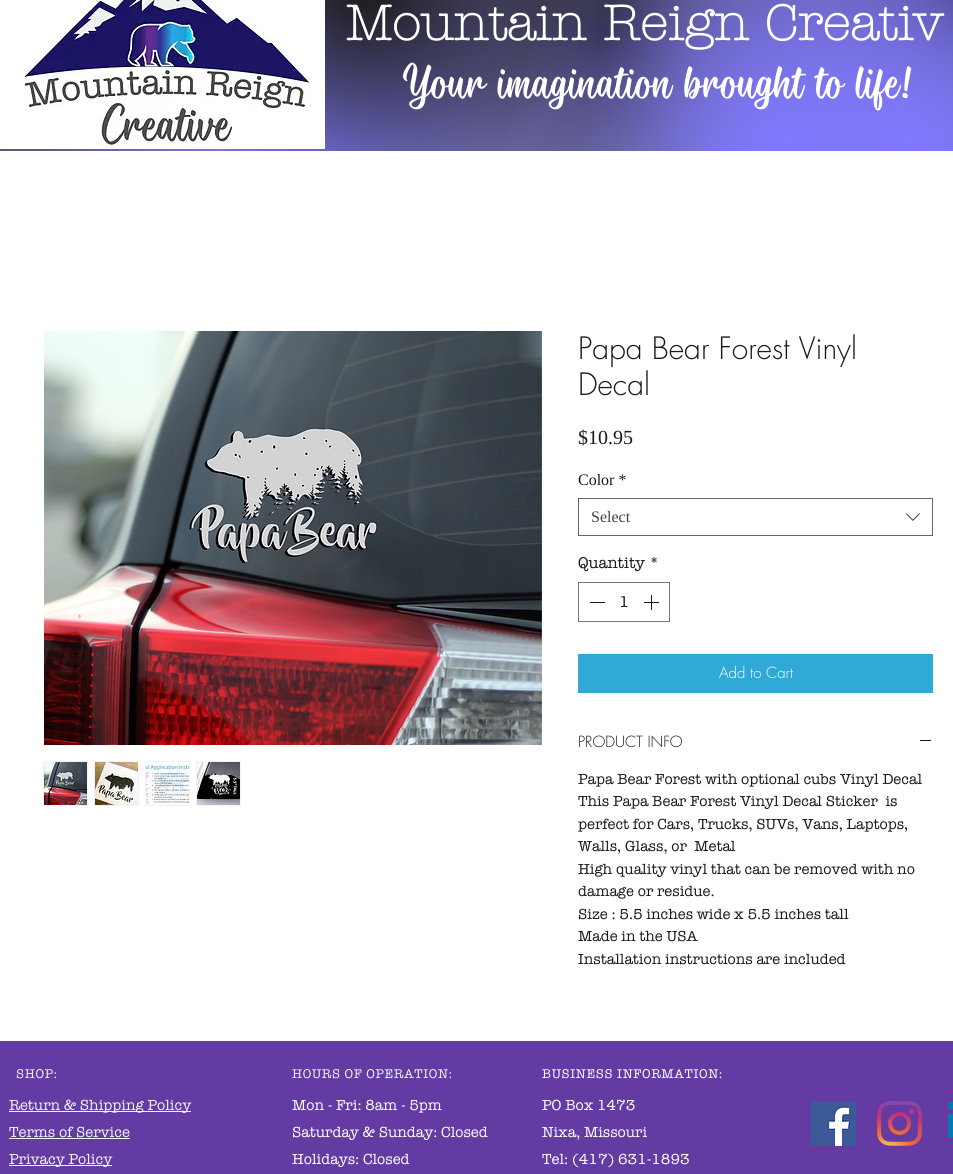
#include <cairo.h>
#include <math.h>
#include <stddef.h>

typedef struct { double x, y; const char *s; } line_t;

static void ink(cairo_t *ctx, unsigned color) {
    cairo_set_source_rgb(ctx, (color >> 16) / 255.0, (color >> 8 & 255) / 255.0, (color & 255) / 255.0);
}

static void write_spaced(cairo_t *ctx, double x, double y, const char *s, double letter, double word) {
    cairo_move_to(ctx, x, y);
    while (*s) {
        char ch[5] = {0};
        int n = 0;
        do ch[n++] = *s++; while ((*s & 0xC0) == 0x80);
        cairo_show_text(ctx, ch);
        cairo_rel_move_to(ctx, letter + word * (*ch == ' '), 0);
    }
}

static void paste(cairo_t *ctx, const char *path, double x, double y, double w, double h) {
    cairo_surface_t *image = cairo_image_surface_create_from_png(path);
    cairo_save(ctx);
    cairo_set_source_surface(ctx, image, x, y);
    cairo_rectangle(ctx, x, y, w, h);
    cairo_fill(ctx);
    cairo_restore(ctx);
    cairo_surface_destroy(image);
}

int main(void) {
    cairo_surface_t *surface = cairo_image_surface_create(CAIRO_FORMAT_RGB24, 953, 1174);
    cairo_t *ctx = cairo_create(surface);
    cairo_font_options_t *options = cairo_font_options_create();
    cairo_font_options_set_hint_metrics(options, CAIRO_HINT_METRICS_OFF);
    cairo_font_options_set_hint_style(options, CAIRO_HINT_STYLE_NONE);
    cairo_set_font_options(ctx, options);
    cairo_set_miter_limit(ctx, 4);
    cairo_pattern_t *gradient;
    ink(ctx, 0xFFFFFF);
    cairo_paint(ctx);
    gradient = cairo_pattern_create_radial(605, 34, 0, 605, 34, 616);
    cairo_pattern_add_color_stop_rgba(gradient, 0, 0.098, 0.098, 0.098, 1);
    cairo_pattern_add_color_stop_rgba(gradient, 0.7, 1, 1, 1, 1);
    cairo_set_source(ctx, gradient);
    cairo_pattern_destroy(gradient);
    cairo_rectangle(ctx, 177, 0, 776, 151);
    cairo_fill(ctx);
    gradient = cairo_pattern_create_radial(60, -13, 0, 60, -13, 934);
    cairo_pattern_add_color_stop_rgba(gradient, 0, 0.098, 0.098, 0.098, 1);
    cairo_pattern_add_color_stop_rgba(gradient, 0.7, 0.098, 0.098, 0.098, 0);
    cairo_set_source(ctx, gradient);
    cairo_pattern_destroy(gradient);
    cairo_rectangle(ctx, 0, 0, 680, 151);
    cairo_fill(ctx);
    gradient = cairo_pattern_create_radial(303, 144, 0, 303, 144, 701);
    cairo_pattern_add_color_stop_rgba(gradient, 0, 0.502, 0.475, 1, 0.99);
    cairo_pattern_add_color_stop_rgba(gradient, 0.5, 0.502, 0.475, 1, 0);
    cairo_set_source(ctx, gradient);
    cairo_pattern_destroy(gradient);
    cairo_rectangle(ctx, 0, 0, 647, 151);
    cairo_fill(ctx);
    gradient = cairo_pattern_create_radial(961, 6.6, 0, 961, 6.6, 972);
    cairo_pattern_add_color_stop_rgba(gradient, 0, 0.098, 0.098, 0.098, 1);
    cairo_pattern_add_color_stop_rgba(gradient, 0.4, 0.098, 0.098, 0.098, 0);
    cairo_set_source(ctx, gradient);
    cairo_pattern_destroy(gradient);
    cairo_rectangle(ctx, 595, 0, 358, 151);
    cairo_fill(ctx);
    gradient = cairo_pattern_create_radial(365, -16, 0, 365, -16, 638);
    cairo_pattern_add_color_stop_rgba(gradient, 0, 0.098, 0.098, 0.098, 1);
    cairo_pattern_add_color_stop_rgba(gradient, 0.35, 0.098, 0.098, 0.098, 0);
    cairo_set_source(ctx, gradient);
    cairo_pattern_destroy(gradient);
    cairo_rectangle(ctx, 223, 0, 352, 151);
    cairo_fill(ctx);
    gradient = cairo_pattern_create_radial(907, 146, 0, 907, 146, 925);
    cairo_pattern_add_color_stop_rgba(gradient, 0, 0.502, 0.475, 1, 1);
    cairo_pattern_add_color_stop_rgba(gradient, 0.35, 0.502, 0.475, 1, 0);
    cairo_set_source(ctx, gradient);
    cairo_pattern_destroy(gradient);
    cairo_rectangle(ctx, 590, 0, 363, 151);
    cairo_fill(ctx);
    gradient = cairo_pattern_create_radial(784, 151, 0, 784, 151, 806);
    cairo_pattern_add_color_stop_rgba(gradient, 0, 0.502, 0.475, 1, 1);
    cairo_pattern_add_color_stop_rgba(gradient, 0.35, 0.502, 0.475, 1, 0);
    cairo_set_source(ctx, gradient);
    cairo_pattern_destroy(gradient);
    cairo_rectangle(ctx, 508, 0, 445, 151);
    cairo_fill(ctx);
    paste(ctx, "media/1.png", 0, 0, 325, 149);
    cairo_select_font_face(ctx, "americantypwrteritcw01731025", CAIRO_FONT_SLANT_NORMAL, CAIRO_FONT_WEIGHT_BOLD);
    cairo_set_font_size(ctx, 50);
    ink(ctx, 0xFFFFFF);
    cairo_move_to(ctx, 345, 40);
    cairo_show_text(ctx, "Mountain Reign Creativ");
    cairo_select_font_face(ctx, "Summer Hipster", CAIRO_FONT_SLANT_NORMAL, CAIRO_FONT_WEIGHT_NORMAL);
    cairo_move_to(ctx, 403, 98);
    cairo_show_text(ctx, "Your imagination brought to life!");
    paste(ctx, "media/2.png", 44, 331, 498, 414);
    ink(ctx, 0xF3F3F5);
    cairo_rectangle(ctx, 43, 761, 45, 45);
    cairo_fill(ctx);
    paste(ctx, "media/3.png", 44, 762, 43, 43);
    cairo_rectangle(ctx, 94, 761, 45, 45);
    cairo_fill(ctx);
    paste(ctx, "media/4.png", 95, 762, 43, 43);
    cairo_rectangle(ctx, 145, 761, 45, 45);
    cairo_fill(ctx);
    paste(ctx, "media/5.png", 146, 762, 43, 43);
    cairo_rectangle(ctx, 196, 761, 45, 45);
    cairo_fill(ctx);
    paste(ctx, "media/6.png", 197, 762, 43, 43);
    cairo_select_font_face(ctx, "futura Light", CAIRO_FONT_SLANT_NORMAL, CAIRO_FONT_WEIGHT_NORMAL);
    cairo_set_font_size(ctx, 30);
    ink(ctx, 0x191919);
    cairo_move_to(ctx, 578, 359);
    cairo_show_text(ctx, "Papa Bear Forest Vinyl");
    cairo_move_to(ctx, 578, 395);
    cairo_show_text(ctx, "Decal");
    cairo_select_font_face(ctx, "Liberation Serif", CAIRO_FONT_SLANT_NORMAL, CAIRO_FONT_WEIGHT_NORMAL);
    cairo_set_font_size(ctx, 20);
    cairo_move_to(ctx, 578, 444);
    cairo_show_text(ctx, "$10.95");
    cairo_set_font_size(ctx, 16);
    cairo_move_to(ctx, 578, 485);
    cairo_show_text(ctx, "Color *");
    cairo_rectangle(ctx, 578.5, 498.5, 354, 37);
    ink(ctx, 0x666666);
    cairo_set_line_width(ctx, 1);
    cairo_stroke(ctx);
    ink(ctx, 0x444444);
    cairo_move_to(ctx, 591, 522);
    cairo_show_text(ctx, "Select");
    paste(ctx, "media/7.png", 905, 513, 15, 8);
    cairo_select_font_face(ctx, "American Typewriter", CAIRO_FONT_SLANT_NORMAL, CAIRO_FONT_WEIGHT_NORMAL);
    ink(ctx, 0x191919);
    cairo_move_to(ctx, 578, 568);
    cairo_show_text(ctx, "Quantity *");
    cairo_rectangle(ctx, 578.5, 582.5, 91, 39);
    ink(ctx, 0x757575);
    cairo_stroke(ctx);
    ink(ctx, 0x191919);
    cairo_rectangle(ctx, 590, 602, 15, 1);
    cairo_fill(ctx);
    cairo_move_to(ctx, 619, 607);
    cairo_show_text(ctx, "1");
    paste(ctx, "media/8.png", 644, 595, 15, 15);
    ink(ctx, 0x2FAAD6);
    cairo_rectangle(ctx, 578, 654, 355, 39);
    cairo_fill(ctx);
    cairo_select_font_face(ctx, "futura Light", CAIRO_FONT_SLANT_NORMAL, CAIRO_FONT_WEIGHT_NORMAL);
    cairo_set_font_size(ctx, 15);
    ink(ctx, 0xFFFFFF);
    cairo_move_to(ctx, 719, 678);
    cairo_show_text(ctx, "Add to Cart");
    ink(ctx, 0x191919);
    cairo_move_to(ctx, 578, 747);
    cairo_show_text(ctx, "PRODUCT INFO");
    cairo_rectangle(ctx, 920, 740, 11, 1);
    cairo_fill(ctx);
    cairo_select_font_face(ctx, "American Typewriter", CAIRO_FONT_SLANT_NORMAL, CAIRO_FONT_WEIGHT_NORMAL);
    {
        static const line_t items[] = {
            {578, 784, "Papa Bear Forest with optional cubs Vinyl Decal"},
            {578, 806, "This Papa Bear Forest Vinyl Decal Sticker  is"},
            {578, 829, "perfect for Cars, Trucks, SUVs, Vans, Laptops,"},
            {578, 851, "Walls, Glass, or  Metal"},
            {578, 874, "High quality vinyl that can be removed with no"},
            {578, 896, "damage or residue."},
            {578, 919, "Size : 5.5 inches wide x 5.5 inches tall"},
            {578, 941, "Made in the USA"},
            {578, 964, "Installation instructions are included"},
        };
        for (size_t i = 0; i < sizeof items / sizeof *items; i++) {
            cairo_move_to(ctx, items[i].x, items[i].y);
            cairo_show_text(ctx, items[i].s);
        }
    }
    ink(ctx, 0x643BA2);
    cairo_rectangle(ctx, 0, 1041, 953, 133);
    cairo_fill(ctx);
    cairo_set_font_size(ctx, 13);
    ink(ctx, 0xF3F3F5);
    write_spaced(ctx, 16, 1078, "SHOP:", 0.65, 0);
    write_spaced(ctx, 292, 1078, "HOURS OF OPERATION:", 0.65, 0);
    ink(ctx, 0xFFFFFF);
    write_spaced(ctx, 542, 1078, "BUSINESS INFORMATION:", 0.65, 0);
    ink(ctx, 0xF3F3F5);
    cairo_rectangle(ctx, 9, 1111, 182, 1);
    cairo_fill(ctx);
    cairo_set_font_size(ctx, 15);
    cairo_move_to(ctx, 9, 1110);
    cairo_show_text(ctx, "Return & Shipping Policy");
    cairo_move_to(ctx, 9, 1137);
    cairo_show_text(ctx, "Terms of Service");
    cairo_rectangle(ctx, 9, 1138, 121, 1);
    cairo_fill(ctx);
    cairo_rectangle(ctx, 9, 1165, 103, 1);
    cairo_fill(ctx);
    cairo_move_to(ctx, 9, 1164);
    cairo_show_text(ctx, "Privacy Policy");
    ink(ctx, 0xFFFFFF);
    {
        static const line_t items[] = {
            {292, 1110, "Mon - Fri: 8am - 5pm"},
            {292, 1137, "Saturday & Sunday: Closed"},
            {292, 1164, "Holidays: Closed"},
            {542, 1110, "PO Box 1473"},
            {542, 1137, "Nixa, Missouri"},
            {542, 1164, "Tel: (417) 631-1893"},
        };
        for (size_t i = 0; i < sizeof items / sizeof *items; i++) {
            cairo_move_to(ctx, items[i].x, items[i].y);
            cairo_show_text(ctx, items[i].s);
        }
    }
    paste(ctx, "media/9.png", 811, 1101, 45, 45);
    paste(ctx, "media/10.png", 877, 1101, 45, 45);
    paste(ctx, "media/11.png", 947, 1101, 6, 37);
    cairo_surface_write_to_png(surface, "image.png");
    cairo_font_options_destroy(options);
    cairo_destroy(ctx);
    cairo_surface_destroy(surface);
    return 0;
}
